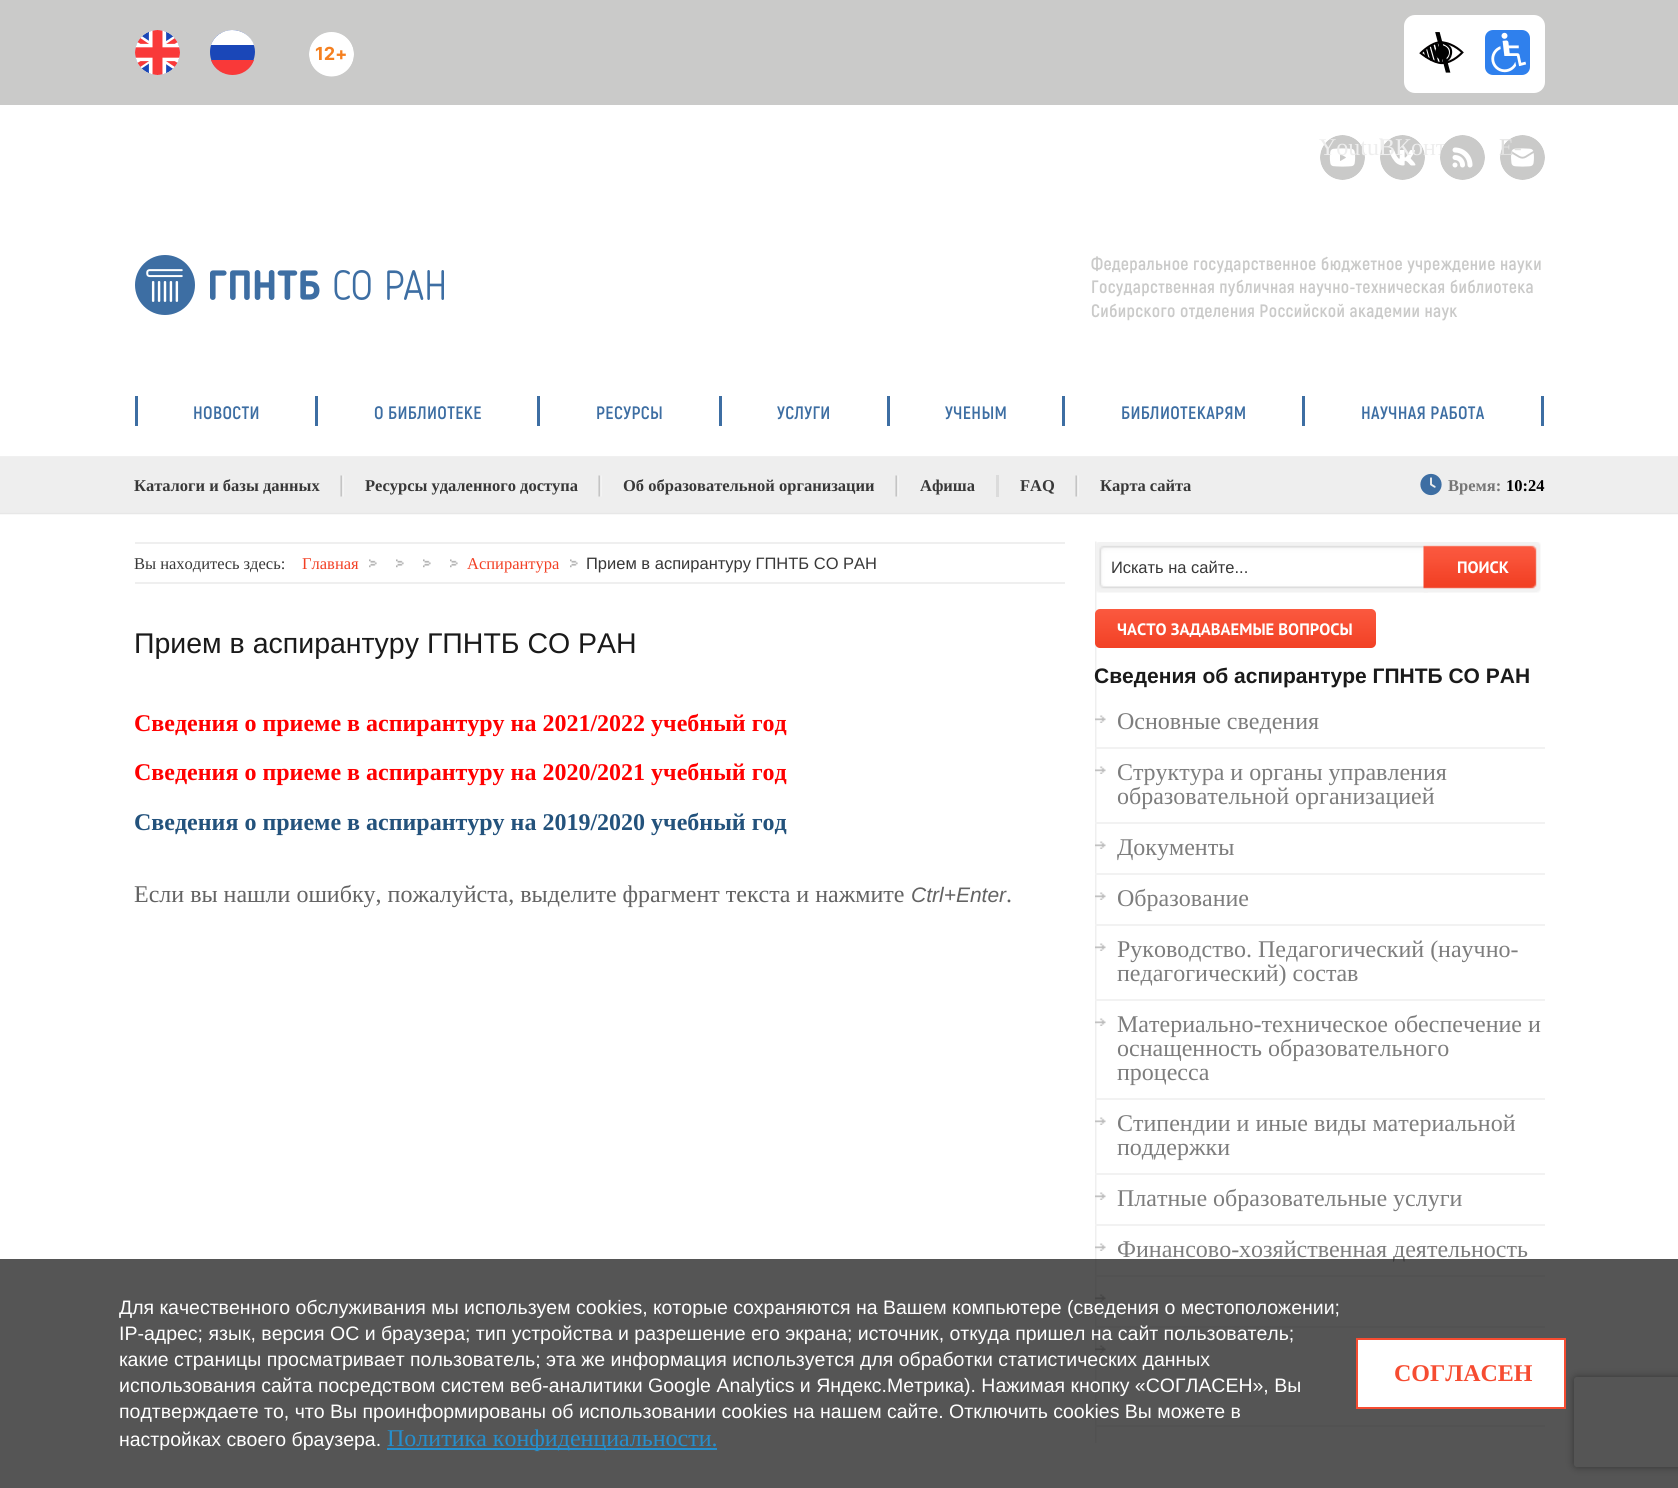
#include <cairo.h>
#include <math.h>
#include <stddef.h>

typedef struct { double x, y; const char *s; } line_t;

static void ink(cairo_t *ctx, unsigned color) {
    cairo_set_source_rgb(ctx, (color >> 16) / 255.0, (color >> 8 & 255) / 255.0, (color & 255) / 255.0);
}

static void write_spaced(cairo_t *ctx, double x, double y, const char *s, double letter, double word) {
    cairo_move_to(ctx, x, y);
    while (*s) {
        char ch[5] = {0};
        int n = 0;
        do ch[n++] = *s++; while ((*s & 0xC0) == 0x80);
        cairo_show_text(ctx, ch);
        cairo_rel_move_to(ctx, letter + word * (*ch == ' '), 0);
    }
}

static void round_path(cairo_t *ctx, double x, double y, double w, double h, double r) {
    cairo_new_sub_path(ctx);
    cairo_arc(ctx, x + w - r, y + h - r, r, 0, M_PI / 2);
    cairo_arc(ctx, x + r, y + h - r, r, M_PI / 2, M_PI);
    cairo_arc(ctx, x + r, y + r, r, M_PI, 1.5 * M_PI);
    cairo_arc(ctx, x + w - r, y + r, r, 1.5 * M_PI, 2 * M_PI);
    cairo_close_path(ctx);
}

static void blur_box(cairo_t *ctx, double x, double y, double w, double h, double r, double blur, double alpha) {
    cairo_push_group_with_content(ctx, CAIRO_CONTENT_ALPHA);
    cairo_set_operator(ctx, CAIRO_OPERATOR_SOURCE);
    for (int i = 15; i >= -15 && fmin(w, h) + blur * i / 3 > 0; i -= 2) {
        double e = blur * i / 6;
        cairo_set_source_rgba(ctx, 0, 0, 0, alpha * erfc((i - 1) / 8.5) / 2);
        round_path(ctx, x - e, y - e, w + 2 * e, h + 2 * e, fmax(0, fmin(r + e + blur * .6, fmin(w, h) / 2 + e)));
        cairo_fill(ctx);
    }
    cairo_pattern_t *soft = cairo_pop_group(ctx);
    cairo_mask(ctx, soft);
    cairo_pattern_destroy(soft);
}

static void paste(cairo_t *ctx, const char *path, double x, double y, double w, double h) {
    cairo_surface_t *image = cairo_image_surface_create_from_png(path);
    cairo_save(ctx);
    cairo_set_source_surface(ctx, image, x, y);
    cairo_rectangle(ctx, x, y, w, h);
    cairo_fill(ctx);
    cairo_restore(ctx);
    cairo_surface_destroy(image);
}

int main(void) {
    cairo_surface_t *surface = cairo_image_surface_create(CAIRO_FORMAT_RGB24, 1678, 1488);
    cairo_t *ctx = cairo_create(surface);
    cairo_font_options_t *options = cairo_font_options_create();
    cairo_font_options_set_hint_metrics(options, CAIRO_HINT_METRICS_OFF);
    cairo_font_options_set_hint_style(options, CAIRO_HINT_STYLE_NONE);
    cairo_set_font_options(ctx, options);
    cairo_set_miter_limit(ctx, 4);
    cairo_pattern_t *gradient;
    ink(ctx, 0xFFFFFF);
    cairo_paint(ctx);
    ink(ctx, 0xCACAC9);
    cairo_rectangle(ctx, 0, 0, 1678, 105);
    cairo_fill(ctx);
    paste(ctx, "media/1.png", 135, 30, 45, 45);
    ink(ctx, 0x1A47B8);
    cairo_new_path(ctx);
    cairo_move_to(ctx, 210, 52);
    cairo_curve_to(ctx, 210, 81, 254, 82, 255, 52);
    cairo_curve_to(ctx, 255, 48, 254, 44, 251, 40);
    cairo_curve_to(ctx, 239, 22, 210, 30, 210, 52);
    cairo_close_path(ctx);
    cairo_fill(ctx);
    ink(ctx, 0xF93939);
    cairo_new_path(ctx);
    cairo_move_to(ctx, 254, 60);
    cairo_line_to(ctx, 211, 60);
    cairo_curve_to(ctx, 218, 80, 247, 80, 254, 60);
    cairo_close_path(ctx);
    cairo_fill(ctx);
    ink(ctx, 0xFFFFFF);
    cairo_new_path(ctx);
    cairo_move_to(ctx, 232, 30);
    cairo_curve_to(ctx, 223, 30, 214, 36, 211, 45);
    cairo_line_to(ctx, 254, 45);
    cairo_curve_to(ctx, 251, 36, 242, 30, 232, 30);
    cairo_close_path(ctx);
    cairo_fill(ctx);
    paste(ctx, "media/2.png", 309, 32, 45, 45);
    round_path(ctx, 1404, 15, 141, 78, 11);
    cairo_fill(ctx);
    paste(ctx, "media/3.png", 1419, 32, 45, 41);
    paste(ctx, "media/4.png", 1485, 30, 45, 45);
    paste(ctx, "media/5.png", 1320, 135, 45, 45);
    cairo_select_font_face(ctx, "Liberation Serif", CAIRO_FONT_SLANT_NORMAL, CAIRO_FONT_WEIGHT_NORMAL);
    cairo_set_font_size(ctx, 24);
    ink(ctx, 0xEEEEEE);
    cairo_move_to(ctx, 1319, 155);
    cairo_show_text(ctx, "Youtub");
    paste(ctx, "media/6.png", 1380, 135, 45, 45);
    cairo_move_to(ctx, 1379, 155);
    cairo_show_text(ctx, "ВКонт");
    paste(ctx, "media/7.png", 1440, 135, 45, 45);
    paste(ctx, "media/8.png", 1500, 135, 45, 45);
    ink(ctx, 0xE1E1E0);
    cairo_move_to(ctx, 1499, 155);
    cairo_show_text(ctx, "E-");
    paste(ctx, "media/9.png", 135, 255, 309, 60);
    cairo_select_font_face(ctx, "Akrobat", CAIRO_FONT_SLANT_NORMAL, CAIRO_FONT_WEIGHT_BOLD);
    cairo_set_font_size(ctx, 18);
    ink(ctx, 0xCACAC9);
    {
        static const line_t items[] = {
            {1091, 270, "Федеральное государственное бюджетное учреждение науки"},
            {1091, 293, "Государственная публичная научно-техническая библиотека"},
            {1091, 317, "Сибирского отделения Российской академии наук"},
        };
        for (size_t i = 0; i < sizeof items / sizeof *items; i++) {
            write_spaced(ctx, items[i].x, items[i].y, items[i].s, 0.35, 0);
        }
    }
    ink(ctx, 0x3D6EA3);
    cairo_rectangle(ctx, 1541, 396, 3, 30);
    cairo_fill(ctx);
    cairo_rectangle(ctx, 135, 396, 3, 30);
    cairo_fill(ctx);
    write_spaced(ctx, 193, 419, "НОВОСТИ", 0.35, 0);
    cairo_rectangle(ctx, 315, 396, 3, 30);
    cairo_fill(ctx);
    write_spaced(ctx, 374, 419, "О БИБЛИОТЕКЕ", 0.35, 0);
    cairo_rectangle(ctx, 537, 396, 3, 30);
    cairo_fill(ctx);
    write_spaced(ctx, 596, 419, "РЕСУРСЫ", 0.35, 0);
    cairo_rectangle(ctx, 719, 396, 3, 30);
    cairo_fill(ctx);
    write_spaced(ctx, 777, 419, "УСЛУГИ", 0.35, 0);
    cairo_rectangle(ctx, 887, 396, 3, 30);
    cairo_fill(ctx);
    write_spaced(ctx, 945, 419, "УЧЕНЫМ", 0.35, 0);
    cairo_rectangle(ctx, 1062, 396, 3, 30);
    cairo_fill(ctx);
    write_spaced(ctx, 1121, 419, "БИБЛИОТЕКАРЯМ", 0.35, 0);
    cairo_rectangle(ctx, 1302, 396, 3, 30);
    cairo_fill(ctx);
    write_spaced(ctx, 1361, 419, "НАУЧНАЯ РАБОТА", 0.35, 0);
    paste(ctx, "media/10.png", 0, 456, 1678, 59);
    cairo_select_font_face(ctx, "Liberation Serif", CAIRO_FONT_SLANT_NORMAL, CAIRO_FONT_WEIGHT_BOLD);
    cairo_set_font_size(ctx, 16.5);
    ink(ctx, 0x383838);
    cairo_move_to(ctx, 134, 491);
    cairo_show_text(ctx, "Каталоги и базы данных");
    paste(ctx, "media/11.png", 340, 475, 4, 22);
    cairo_move_to(ctx, 365, 491);
    cairo_show_text(ctx, "Ресурсы удаленного доступа");
    paste(ctx, "media/11.png", 598, 475, 4, 22);
    cairo_move_to(ctx, 623, 491);
    cairo_show_text(ctx, "Об образовательной организации");
    paste(ctx, "media/11.png", 895, 475, 4, 22);
    cairo_move_to(ctx, 920, 491);
    cairo_show_text(ctx, "Афиша");
    ink(ctx, 0xDBDBDB);
    cairo_rectangle(ctx, 996, 475, 3, 22);
    cairo_fill(ctx);
    ink(ctx, 0x383838);
    cairo_move_to(ctx, 1020, 491);
    cairo_show_text(ctx, "FAQ");
    paste(ctx, "media/11.png", 1075, 475, 4, 22);
    cairo_move_to(ctx, 1100, 491);
    cairo_show_text(ctx, "Карта сайта");
    paste(ctx, "media/12.png", 1420, 473, 22, 23);
    ink(ctx, 0x767676);
    cairo_move_to(ctx, 1448, 491);
    cairo_show_text(ctx, "Время:");
    ink(ctx, 0x000000);
    cairo_move_to(ctx, 1506, 491);
    cairo_show_text(ctx, "10:24");
    paste(ctx, "media/13.png", 1095, 541, 2, 902);
    ink(ctx, 0xEFEFEF);
    cairo_rectangle(ctx, 135, 542, 930, 2);
    cairo_fill(ctx);
    cairo_rectangle(ctx, 135, 582, 930, 2);
    cairo_fill(ctx);
    cairo_select_font_face(ctx, "Liberation Serif", CAIRO_FONT_SLANT_NORMAL, CAIRO_FONT_WEIGHT_NORMAL);
    ink(ctx, 0x383838);
    cairo_move_to(ctx, 134, 569);
    cairo_show_text(ctx, "Вы находитесь здесь:");
    ink(ctx, 0xF24024);
    cairo_move_to(ctx, 302, 569);
    cairo_show_text(ctx, "Главная");
    paste(ctx, "media/14.png", 369, 559, 8, 9);
    paste(ctx, "media/14.png", 396, 559, 8, 9);
    paste(ctx, "media/14.png", 423, 559, 8, 9);
    paste(ctx, "media/14.png", 450, 559, 8, 9);
    cairo_move_to(ctx, 467, 569);
    cairo_show_text(ctx, "Аспирантура");
    paste(ctx, "media/14.png", 570, 559, 8, 9);
    cairo_select_font_face(ctx, "Liberation Sans", CAIRO_FONT_SLANT_NORMAL, CAIRO_FONT_WEIGHT_NORMAL);
    ink(ctx, 0x383838);
    cairo_move_to(ctx, 586, 569);
    cairo_show_text(ctx, "Прием в аспирантуру ГПНТБ СО РАН");
    cairo_set_font_size(ctx, 28.5);
    ink(ctx, 0x1A1A1A);
    cairo_move_to(ctx, 134, 653);
    cairo_show_text(ctx, "Прием в аспирантуру ГПНТБ СО РАН");
    cairo_select_font_face(ctx, "Liberation Serif", CAIRO_FONT_SLANT_NORMAL, CAIRO_FONT_WEIGHT_BOLD);
    cairo_set_font_size(ctx, 24);
    ink(ctx, 0xFF0000);
    cairo_move_to(ctx, 134, 731);
    cairo_show_text(ctx, "Сведения о приеме в аспирантуру на 2021/2022 учебный год");
    cairo_move_to(ctx, 134, 780);
    cairo_show_text(ctx, "Сведения о приеме в аспирантуру на 2020/2021 учебный год");
    ink(ctx, 0x23527C);
    cairo_move_to(ctx, 134, 830);
    cairo_show_text(ctx, "Сведения о приеме в аспирантуру на 2019/2020 учебный год");
    cairo_select_font_face(ctx, "Liberation Serif", CAIRO_FONT_SLANT_NORMAL, CAIRO_FONT_WEIGHT_NORMAL);
    ink(ctx, 0x636363);
    cairo_move_to(ctx, 134, 902);
    cairo_show_text(ctx, "Если вы нашли ошибку, пожалуйста, выделите фрагмент текста и нажмите");
    cairo_select_font_face(ctx, "Liberation Sans", CAIRO_FONT_SLANT_ITALIC, CAIRO_FONT_WEIGHT_NORMAL);
    cairo_set_font_size(ctx, 21);
    cairo_move_to(ctx, 911, 902);
    cairo_show_text(ctx, "Ctrl+Enter");
    cairo_select_font_face(ctx, "Liberation Serif", CAIRO_FONT_SLANT_NORMAL, CAIRO_FONT_WEIGHT_NORMAL);
    cairo_set_font_size(ctx, 24);
    cairo_move_to(ctx, 1006, 902);
    cairo_show_text(ctx, ".");
    paste(ctx, "media/15.png", 1096, 542, 332, 51);
    cairo_select_font_face(ctx, "Liberation Sans", CAIRO_FONT_SLANT_NORMAL, CAIRO_FONT_WEIGHT_NORMAL);
    cairo_set_font_size(ctx, 16.5);
    ink(ctx, 0x383838);
    cairo_move_to(ctx, 1111, 573);
    cairo_show_text(ctx, "Искать на сайте...");
    paste(ctx, "media/16.png", 1423, 542, 118, 51);
    cairo_select_font_face(ctx, "PT Sans", CAIRO_FONT_SLANT_NORMAL, CAIRO_FONT_WEIGHT_BOLD);
    ink(ctx, 0xFFFFFF);
    cairo_move_to(ctx, 1457, 573);
    cairo_show_text(ctx, "ПОИСК");
    gradient = cairo_pattern_create_linear(1235, 609, 1235, 648);
    cairo_pattern_add_color_stop_rgba(gradient, 0, 0.984, 0.349, 0.247, 1);
    cairo_pattern_add_color_stop_rgba(gradient, 1, 0.949, 0.255, 0.145, 1);
    cairo_set_source(ctx, gradient);
    cairo_pattern_destroy(gradient);
    round_path(ctx, 1095, 609, 281, 39, 5);
    cairo_fill(ctx);
    ink(ctx, 0xFFFFFF);
    cairo_move_to(ctx, 1117, 635);
    cairo_show_text(ctx, "ЧАСТО ЗАДАВАЕМЫЕ ВОПРОСЫ");
    cairo_select_font_face(ctx, "Liberation Sans", CAIRO_FONT_SLANT_NORMAL, CAIRO_FONT_WEIGHT_BOLD);
    cairo_set_font_size(ctx, 21);
    ink(ctx, 0x1A1A1A);
    cairo_move_to(ctx, 1094, 683);
    cairo_show_text(ctx, "Сведения об аспирантуре ГПНТБ СО РАН");
    ink(ctx, 0xF2F2F2);
    cairo_rectangle(ctx, 1095, 747, 450, 2);
    cairo_fill(ctx);
    paste(ctx, "media/17.png", 1095, 715, 11, 8);
    cairo_select_font_face(ctx, "Liberation Serif", CAIRO_FONT_SLANT_NORMAL, CAIRO_FONT_WEIGHT_NORMAL);
    cairo_set_font_size(ctx, 24);
    ink(ctx, 0x7D7D7D);
    cairo_move_to(ctx, 1117, 729);
    cairo_show_text(ctx, "Основные сведения");
    ink(ctx, 0xF2F2F2);
    cairo_rectangle(ctx, 1095, 822, 450, 2);
    cairo_fill(ctx);
    paste(ctx, "media/17.png", 1095, 766, 11, 8);
    ink(ctx, 0x7D7D7D);
    cairo_move_to(ctx, 1117, 780);
    cairo_show_text(ctx, "Структура и органы управления");
    cairo_move_to(ctx, 1117, 804);
    cairo_show_text(ctx, "образовательной организацией");
    ink(ctx, 0xF2F2F2);
    cairo_rectangle(ctx, 1095, 873, 450, 2);
    cairo_fill(ctx);
    paste(ctx, "media/17.png", 1095, 841, 11, 8);
    ink(ctx, 0x7D7D7D);
    cairo_move_to(ctx, 1117, 855);
    cairo_show_text(ctx, "Документы");
    ink(ctx, 0xF2F2F2);
    cairo_rectangle(ctx, 1095, 924, 450, 2);
    cairo_fill(ctx);
    paste(ctx, "media/17.png", 1095, 892, 11, 8);
    ink(ctx, 0x7D7D7D);
    cairo_move_to(ctx, 1117, 906);
    cairo_show_text(ctx, "Образование");
    ink(ctx, 0xF2F2F2);
    cairo_rectangle(ctx, 1095, 999, 450, 2);
    cairo_fill(ctx);
    paste(ctx, "media/17.png", 1095, 943, 11, 8);
    ink(ctx, 0x7D7D7D);
    cairo_move_to(ctx, 1117, 957);
    cairo_show_text(ctx, "Руководство. Педагогический (научно-");
    cairo_move_to(ctx, 1117, 981);
    cairo_show_text(ctx, "педагогический) состав");
    ink(ctx, 0xF2F2F2);
    cairo_rectangle(ctx, 1095, 1098, 450, 2);
    cairo_fill(ctx);
    paste(ctx, "media/17.png", 1095, 1018, 11, 8);
    ink(ctx, 0x7D7D7D);
    {
        static const line_t items[] = {
            {1117, 1032, "Материально-техническое обеспечение и"},
            {1117, 1056, "оснащенность образовательного"},
            {1117, 1080, "процесса"},
        };
        for (size_t i = 0; i < sizeof items / sizeof *items; i++) {
            cairo_move_to(ctx, items[i].x, items[i].y);
            cairo_show_text(ctx, items[i].s);
        }
    }
    ink(ctx, 0xF2F2F2);
    cairo_rectangle(ctx, 1095, 1173, 450, 2);
    cairo_fill(ctx);
    paste(ctx, "media/17.png", 1095, 1117, 11, 8);
    ink(ctx, 0x7D7D7D);
    cairo_move_to(ctx, 1117, 1131);
    cairo_show_text(ctx, "Стипендии и иные виды материальной");
    cairo_move_to(ctx, 1117, 1155);
    cairo_show_text(ctx, "поддержки");
    ink(ctx, 0xF2F2F2);
    cairo_rectangle(ctx, 1095, 1224, 450, 2);
    cairo_fill(ctx);
    paste(ctx, "media/17.png", 1095, 1192, 11, 8);
    ink(ctx, 0x7D7D7D);
    cairo_move_to(ctx, 1117, 1206);
    cairo_show_text(ctx, "Платные образовательные услуги");
    ink(ctx, 0xF2F2F2);
    cairo_rectangle(ctx, 1095, 1275, 450, 2);
    cairo_fill(ctx);
    paste(ctx, "media/17.png", 1095, 1243, 11, 8);
    ink(ctx, 0x7D7D7D);
    cairo_move_to(ctx, 1117, 1257);
    cairo_show_text(ctx, "Финансово-хозяйственная деятельность");
    ink(ctx, 0xF2F2F2);
    cairo_rectangle(ctx, 1095, 1326, 450, 2);
    cairo_fill(ctx);
    paste(ctx, "media/17.png", 1095, 1294, 11, 8);
    cairo_rectangle(ctx, 1095, 1425, 450, 2);
    cairo_fill(ctx);
    paste(ctx, "media/17.png", 1095, 1345, 11, 8);
    cairo_save(ctx);
    cairo_set_fill_rule(ctx, CAIRO_FILL_RULE_EVEN_ODD);
    cairo_new_path(ctx);
    cairo_move_to(ctx, 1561, 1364);
    cairo_line_to(ctx, 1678, 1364);
    cairo_line_to(ctx, 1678, 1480);
    cairo_line_to(ctx, 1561, 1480);
    cairo_close_path(ctx);
    cairo_move_to(ctx, 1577, 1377);
    cairo_line_to(ctx, 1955, 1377);
    cairo_curve_to(ctx, 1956.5, 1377, 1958, 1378.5, 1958, 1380);
    cairo_line_to(ctx, 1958, 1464);
    cairo_curve_to(ctx, 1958, 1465.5, 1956.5, 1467, 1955, 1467);
    cairo_line_to(ctx, 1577, 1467);
    cairo_curve_to(ctx, 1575.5, 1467, 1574, 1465.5, 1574, 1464);
    cairo_line_to(ctx, 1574, 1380);
    cairo_curve_to(ctx, 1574, 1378.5, 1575.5, 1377, 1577, 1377);
    cairo_close_path(ctx);
    cairo_clip(ctx);
    ink(ctx, 0x808080);
    blur_box(ctx, 1574, 1377, 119, 90, 3, 4, 1);
    cairo_restore(ctx);
    cairo_set_source_rgba(ctx, 0.11, 0.11, 0.11, 0.75);
    cairo_rectangle(ctx, 0, 1259, 1678, 229);
    cairo_fill(ctx);
    cairo_select_font_face(ctx, "Liberation Sans", CAIRO_FONT_SLANT_NORMAL, CAIRO_FONT_WEIGHT_NORMAL);
    cairo_set_font_size(ctx, 19.5);
    ink(ctx, 0xFFFFFF);
    {
        static const line_t items[] = {
            {119, 1314, "Для качественного обслуживания мы используем cookies, которые сохраняются на Вашем компьютере (сведения о местоположении;"},
            {119, 1340, "IP-адрес; язык, версия ОС и браузера; тип устройства и разрешение его экрана; источник, откуда пришел на сайт пользователь;"},
            {119, 1366, "какие страницы просматривает пользователь; эта же информация используется для обработки статистических данных"},
            {119, 1392, "использования сайта посредством систем веб-аналитики Google Analytics и Яндекс.Метрика). Нажимая кнопку «СОГЛАСЕН», Вы"},
            {119, 1418, "подтверждаете то, что Вы проинформированы об использовании cookies на нашем сайте. Отключить cookies Вы можете в"},
            {119, 1446, "настройках своего браузера."},
        };
        for (size_t i = 0; i < sizeof items / sizeof *items; i++) {
            cairo_move_to(ctx, items[i].x, items[i].y);
            cairo_show_text(ctx, items[i].s);
        }
    }
    ink(ctx, 0x258FCD);
    cairo_rectangle(ctx, 387, 1448, 330, 2);
    cairo_fill(ctx);
    cairo_select_font_face(ctx, "Liberation Serif", CAIRO_FONT_SLANT_NORMAL, CAIRO_FONT_WEIGHT_NORMAL);
    cairo_set_font_size(ctx, 24);
    cairo_move_to(ctx, 387, 1446);
    cairo_show_text(ctx, "Политика конфиденциальности.");
    ink(ctx, 0xFFFFFF);
    cairo_rectangle(ctx, 1357, 1339, 208, 69);
    cairo_fill_preserve(ctx);
    ink(ctx, 0xF64C31);
    cairo_stroke(ctx);
    cairo_select_font_face(ctx, "Liberation Serif", CAIRO_FONT_SLANT_NORMAL, CAIRO_FONT_WEIGHT_BOLD);
    cairo_move_to(ctx, 1394, 1381);
    cairo_show_text(ctx, "СОГЛАСЕН");
    cairo_surface_write_to_png(surface, "image.png");
    cairo_font_options_destroy(options);
    cairo_destroy(ctx);
    cairo_surface_destroy(surface);
    return 0;
}
